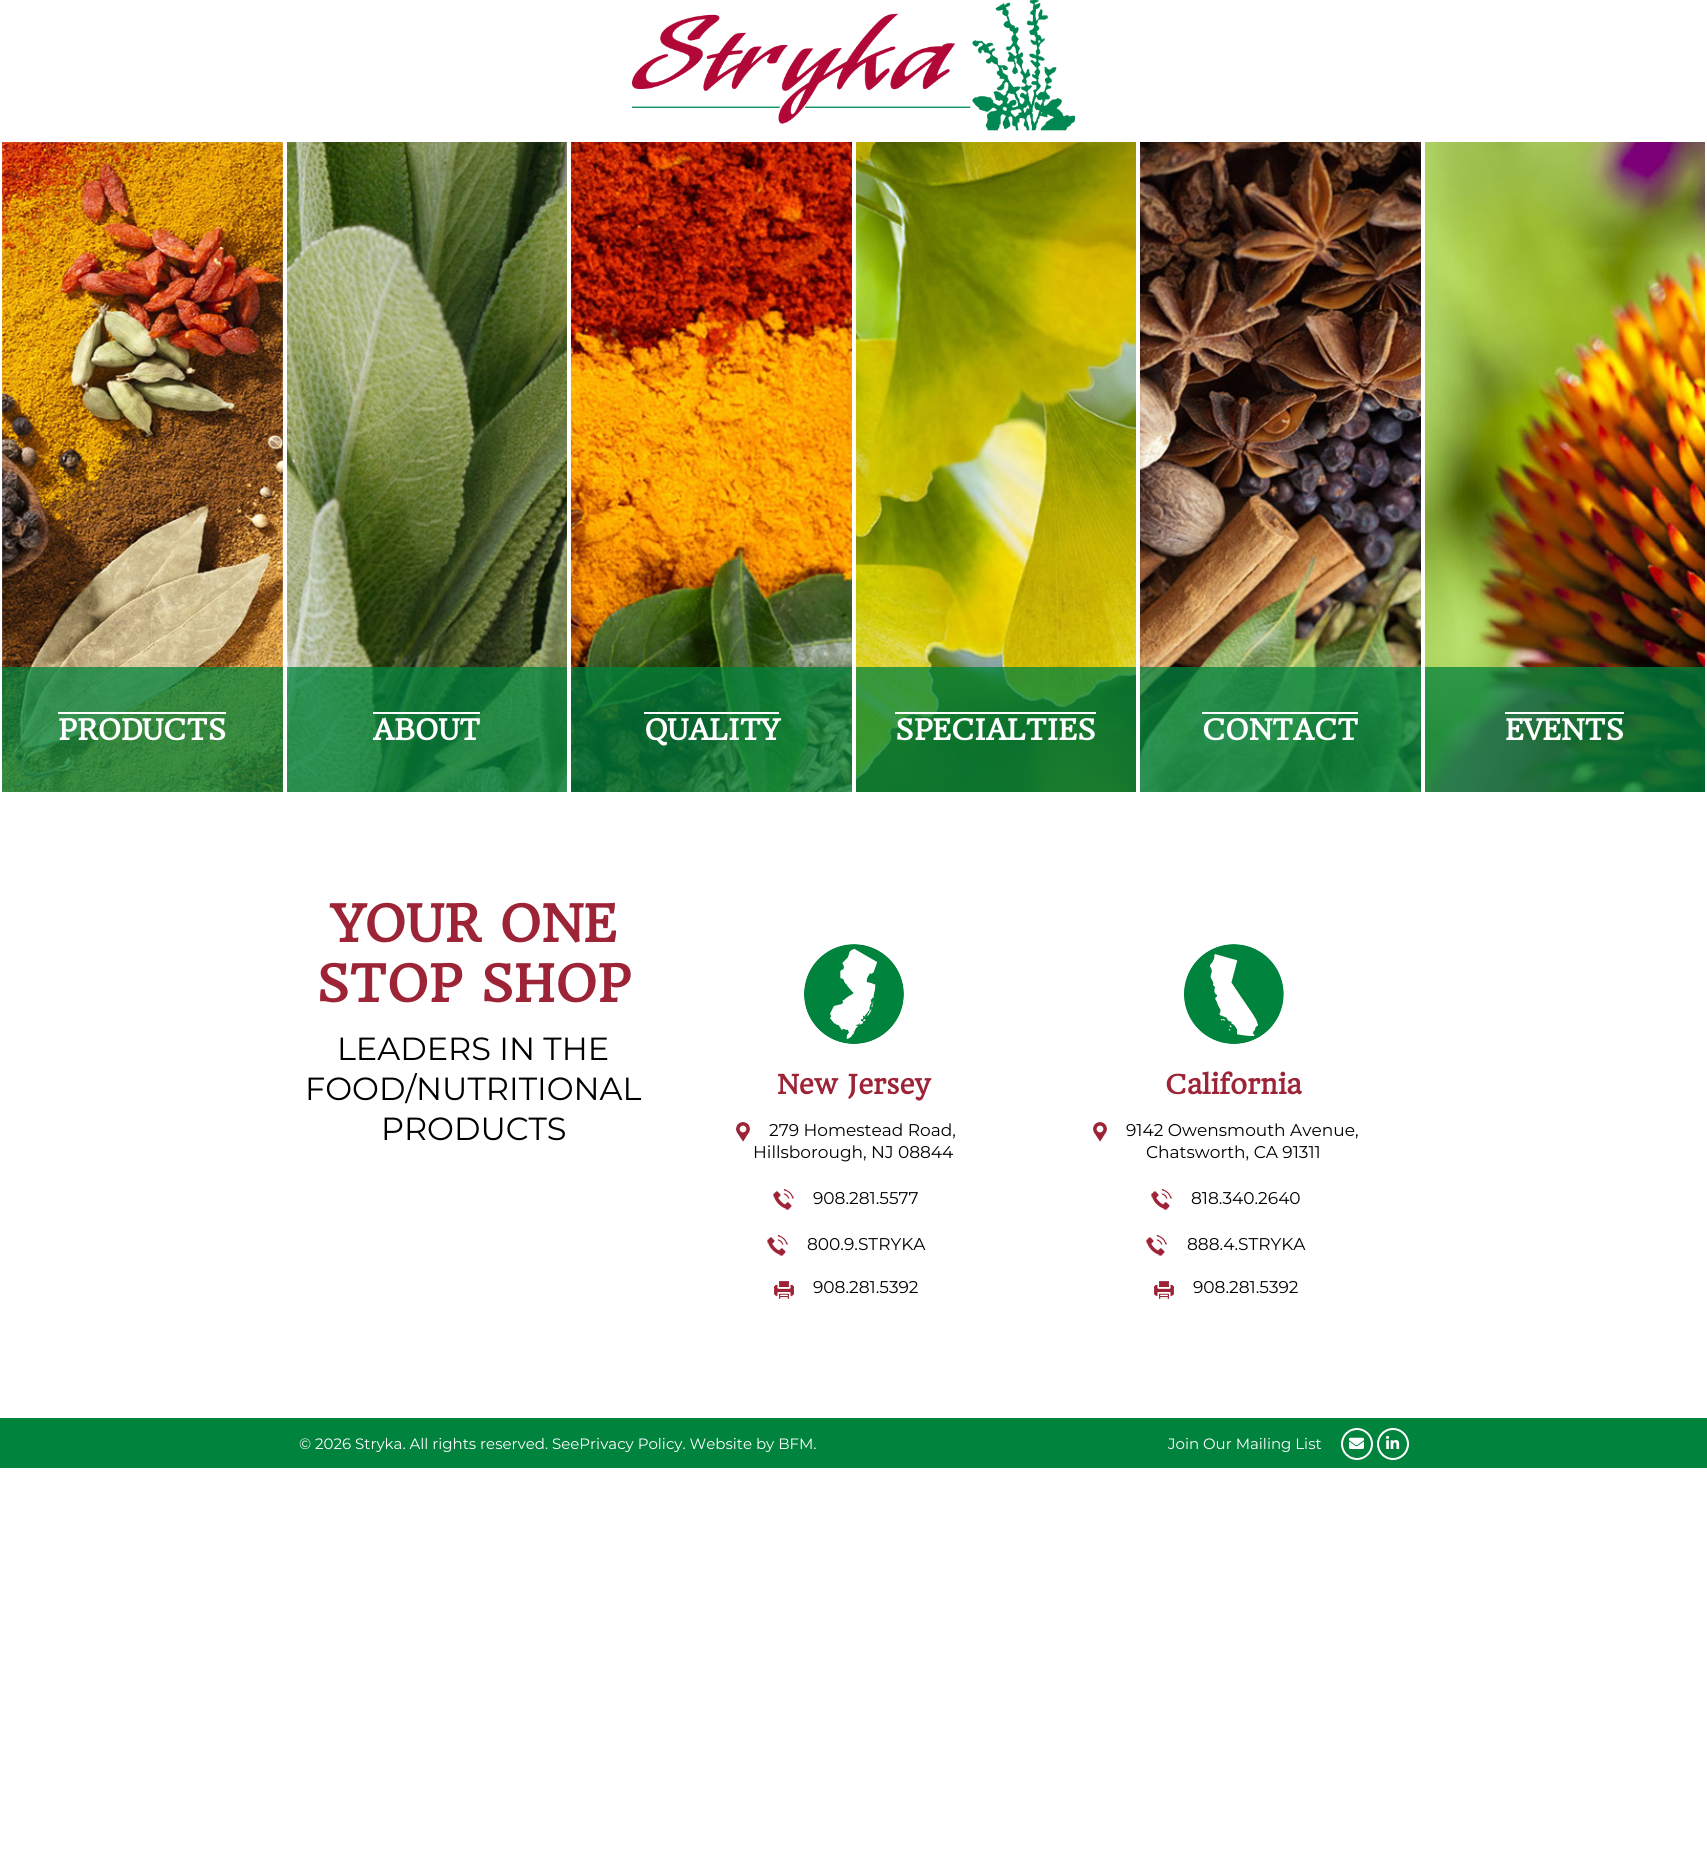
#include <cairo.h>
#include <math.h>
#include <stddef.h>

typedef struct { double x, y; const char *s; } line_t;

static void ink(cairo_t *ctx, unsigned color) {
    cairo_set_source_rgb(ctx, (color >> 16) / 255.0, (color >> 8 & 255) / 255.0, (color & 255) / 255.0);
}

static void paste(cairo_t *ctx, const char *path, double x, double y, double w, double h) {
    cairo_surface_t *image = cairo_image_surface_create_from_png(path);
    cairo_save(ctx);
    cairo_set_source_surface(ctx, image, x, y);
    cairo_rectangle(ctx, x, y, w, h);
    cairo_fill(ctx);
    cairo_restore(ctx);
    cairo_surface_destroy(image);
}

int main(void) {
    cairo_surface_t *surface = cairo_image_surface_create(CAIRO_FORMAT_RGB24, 1707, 1856);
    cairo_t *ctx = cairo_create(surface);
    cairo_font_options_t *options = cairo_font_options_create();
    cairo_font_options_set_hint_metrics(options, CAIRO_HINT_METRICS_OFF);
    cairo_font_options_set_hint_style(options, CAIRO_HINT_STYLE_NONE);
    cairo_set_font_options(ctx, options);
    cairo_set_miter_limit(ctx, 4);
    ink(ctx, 0xFFFFFF);
    cairo_paint(ctx);
    paste(ctx, "media/1.png", 632, 0, 443, 131);
    paste(ctx, "media/2.png", 2, 142, 281, 650);
    cairo_set_source_rgba(ctx, 0, 0.514, 0.239, 0.75);
    cairo_rectangle(ctx, 2, 667, 281, 125);
    cairo_fill(ctx);
    cairo_select_font_face(ctx, "HeadlandOne", CAIRO_FONT_SLANT_NORMAL, CAIRO_FONT_WEIGHT_BOLD);
    cairo_set_font_size(ctx, 28);
    ink(ctx, 0xFFFFFF);
    cairo_move_to(ctx, 58, 740);
    cairo_show_text(ctx, "PRODUCTS");
    cairo_rectangle(ctx, 58, 712, 168, 2);
    cairo_fill(ctx);
    paste(ctx, "media/3.png", 287, 142, 280, 650);
    cairo_set_source_rgba(ctx, 0, 0.514, 0.239, 0.75);
    cairo_rectangle(ctx, 287, 667, 280, 125);
    cairo_fill(ctx);
    ink(ctx, 0xFFFFFF);
    cairo_move_to(ctx, 373, 740);
    cairo_show_text(ctx, "ABOUT");
    cairo_rectangle(ctx, 373, 712, 107, 2);
    cairo_fill(ctx);
    paste(ctx, "media/4.png", 571, 142, 281, 650);
    cairo_set_source_rgba(ctx, 0, 0.514, 0.239, 0.75);
    cairo_rectangle(ctx, 571, 667, 281, 125);
    cairo_fill(ctx);
    ink(ctx, 0xFFFFFF);
    cairo_move_to(ctx, 644, 740);
    cairo_show_text(ctx, "QUALITY");
    cairo_rectangle(ctx, 644, 712, 135, 2);
    cairo_fill(ctx);
    paste(ctx, "media/5.png", 856, 142, 280, 650);
    cairo_set_source_rgba(ctx, 0, 0.514, 0.239, 0.75);
    cairo_rectangle(ctx, 856, 667, 280, 125);
    cairo_fill(ctx);
    ink(ctx, 0xFFFFFF);
    cairo_move_to(ctx, 895, 740);
    cairo_show_text(ctx, "SPECIALTIES");
    cairo_rectangle(ctx, 895, 712, 201, 2);
    cairo_fill(ctx);
    paste(ctx, "media/6.png", 1140, 142, 281, 650);
    cairo_set_source_rgba(ctx, 0, 0.514, 0.239, 0.75);
    cairo_rectangle(ctx, 1140, 667, 281, 125);
    cairo_fill(ctx);
    ink(ctx, 0xFFFFFF);
    cairo_move_to(ctx, 1202, 740);
    cairo_show_text(ctx, "CONTACT");
    cairo_rectangle(ctx, 1202, 712, 156, 2);
    cairo_fill(ctx);
    paste(ctx, "media/7.png", 1425, 142, 280, 650);
    cairo_set_source_rgba(ctx, 0, 0.514, 0.239, 0.75);
    cairo_rectangle(ctx, 1425, 667, 280, 125);
    cairo_fill(ctx);
    ink(ctx, 0xFFFFFF);
    cairo_move_to(ctx, 1505, 740);
    cairo_show_text(ctx, "EVENTS");
    cairo_rectangle(ctx, 1505, 712, 119, 2);
    cairo_fill(ctx);
    cairo_set_font_size(ctx, 50);
    ink(ctx, 0x9D2437);
    cairo_move_to(ctx, 331, 942);
    cairo_show_text(ctx, "YOUR ONE");
    cairo_move_to(ctx, 316, 1002);
    cairo_show_text(ctx, "STOP SHOP");
    cairo_select_font_face(ctx, "Montserrat", CAIRO_FONT_SLANT_NORMAL, CAIRO_FONT_WEIGHT_NORMAL);
    cairo_set_font_size(ctx, 32);
    ink(ctx, 0x000000);
    {
        static const line_t items[] = {
            {337, 1060, "LEADERS IN THE"},
            {305, 1100, "FOOD/NUTRITIONAL"},
            {381, 1140, "PRODUCTS"},
        };
        for (size_t i = 0; i < sizeof items / sizeof *items; i++) {
            cairo_move_to(ctx, items[i].x, items[i].y);
            cairo_show_text(ctx, items[i].s);
        }
    }
    paste(ctx, "media/8.png", 804, 944, 100, 100);
    cairo_select_font_face(ctx, "HeadlandOne", CAIRO_FONT_SLANT_NORMAL, CAIRO_FONT_WEIGHT_BOLD);
    cairo_set_font_size(ctx, 26);
    ink(ctx, 0x9D2437);
    cairo_move_to(ctx, 777, 1094);
    cairo_show_text(ctx, "New Jersey");
    paste(ctx, "media/9.png", 736, 1122, 14, 20);
    cairo_select_font_face(ctx, "Montserrat", CAIRO_FONT_SLANT_NORMAL, CAIRO_FONT_WEIGHT_NORMAL);
    cairo_set_font_size(ctx, 17);
    ink(ctx, 0x000000);
    cairo_move_to(ctx, 769, 1136);
    cairo_show_text(ctx, "279 Homestead Road,");
    cairo_move_to(ctx, 753, 1158);
    cairo_show_text(ctx, "Hillsborough, NJ 08844");
    paste(ctx, "media/10.png", 773, 1189, 21, 21);
    cairo_move_to(ctx, 813, 1204);
    cairo_show_text(ctx, "908.281.5577");
    paste(ctx, "media/10.png", 767, 1235, 21, 21);
    cairo_move_to(ctx, 807, 1250);
    cairo_show_text(ctx, "800.9.STRYKA");
    paste(ctx, "media/11.png", 774, 1281, 20, 18);
    cairo_move_to(ctx, 813, 1293);
    cairo_show_text(ctx, "908.281.5392");
    paste(ctx, "media/12.png", 1184, 944, 100, 100);
    cairo_select_font_face(ctx, "HeadlandOne", CAIRO_FONT_SLANT_NORMAL, CAIRO_FONT_WEIGHT_BOLD);
    cairo_set_font_size(ctx, 26);
    ink(ctx, 0x9D2437);
    cairo_move_to(ctx, 1165, 1094);
    cairo_show_text(ctx, "California");
    paste(ctx, "media/9.png", 1093, 1122, 14, 20);
    cairo_select_font_face(ctx, "Montserrat", CAIRO_FONT_SLANT_NORMAL, CAIRO_FONT_WEIGHT_NORMAL);
    cairo_set_font_size(ctx, 17);
    ink(ctx, 0x000000);
    cairo_move_to(ctx, 1126, 1136);
    cairo_show_text(ctx, "9142 Owensmouth Avenue,");
    cairo_move_to(ctx, 1146, 1158);
    cairo_show_text(ctx, "Chatsworth, CA 91311");
    paste(ctx, "media/10.png", 1151, 1189, 21, 21);
    cairo_move_to(ctx, 1191, 1204);
    cairo_show_text(ctx, "818.340.2640");
    paste(ctx, "media/10.png", 1146, 1235, 21, 21);
    cairo_move_to(ctx, 1187, 1250);
    cairo_show_text(ctx, "888.4.STRYKA");
    paste(ctx, "media/11.png", 1154, 1281, 20, 18);
    cairo_move_to(ctx, 1193, 1293);
    cairo_show_text(ctx, "908.281.5392");
    ink(ctx, 0x00833D);
    cairo_rectangle(ctx, 0, 1418, 1707, 50);
    cairo_fill(ctx);
    cairo_set_font_size(ctx, 15);
    ink(ctx, 0xFFFFFF);
    cairo_move_to(ctx, 299, 1449);
    cairo_show_text(ctx, "© 2026 Stryka. All rights reserved. SeePrivacy Policy. Website by BFM.");
    cairo_move_to(ctx, 1168, 1449);
    cairo_show_text(ctx, "Join Our Mailing List");
    cairo_new_path(ctx);
    cairo_arc(ctx, 1357, 1444, 15, 0, 2 * M_PI);
    cairo_stroke(ctx);
    paste(ctx, "media/13.png", 1349, 1437, 15, 12);
    cairo_arc(ctx, 1393, 1444, 15, 0, 2 * M_PI);
    cairo_stroke(ctx);
    paste(ctx, "media/14.png", 1386, 1435, 14, 14);
    cairo_surface_write_to_png(surface, "image.png");
    cairo_font_options_destroy(options);
    cairo_destroy(ctx);
    cairo_surface_destroy(surface);
    return 0;
}
